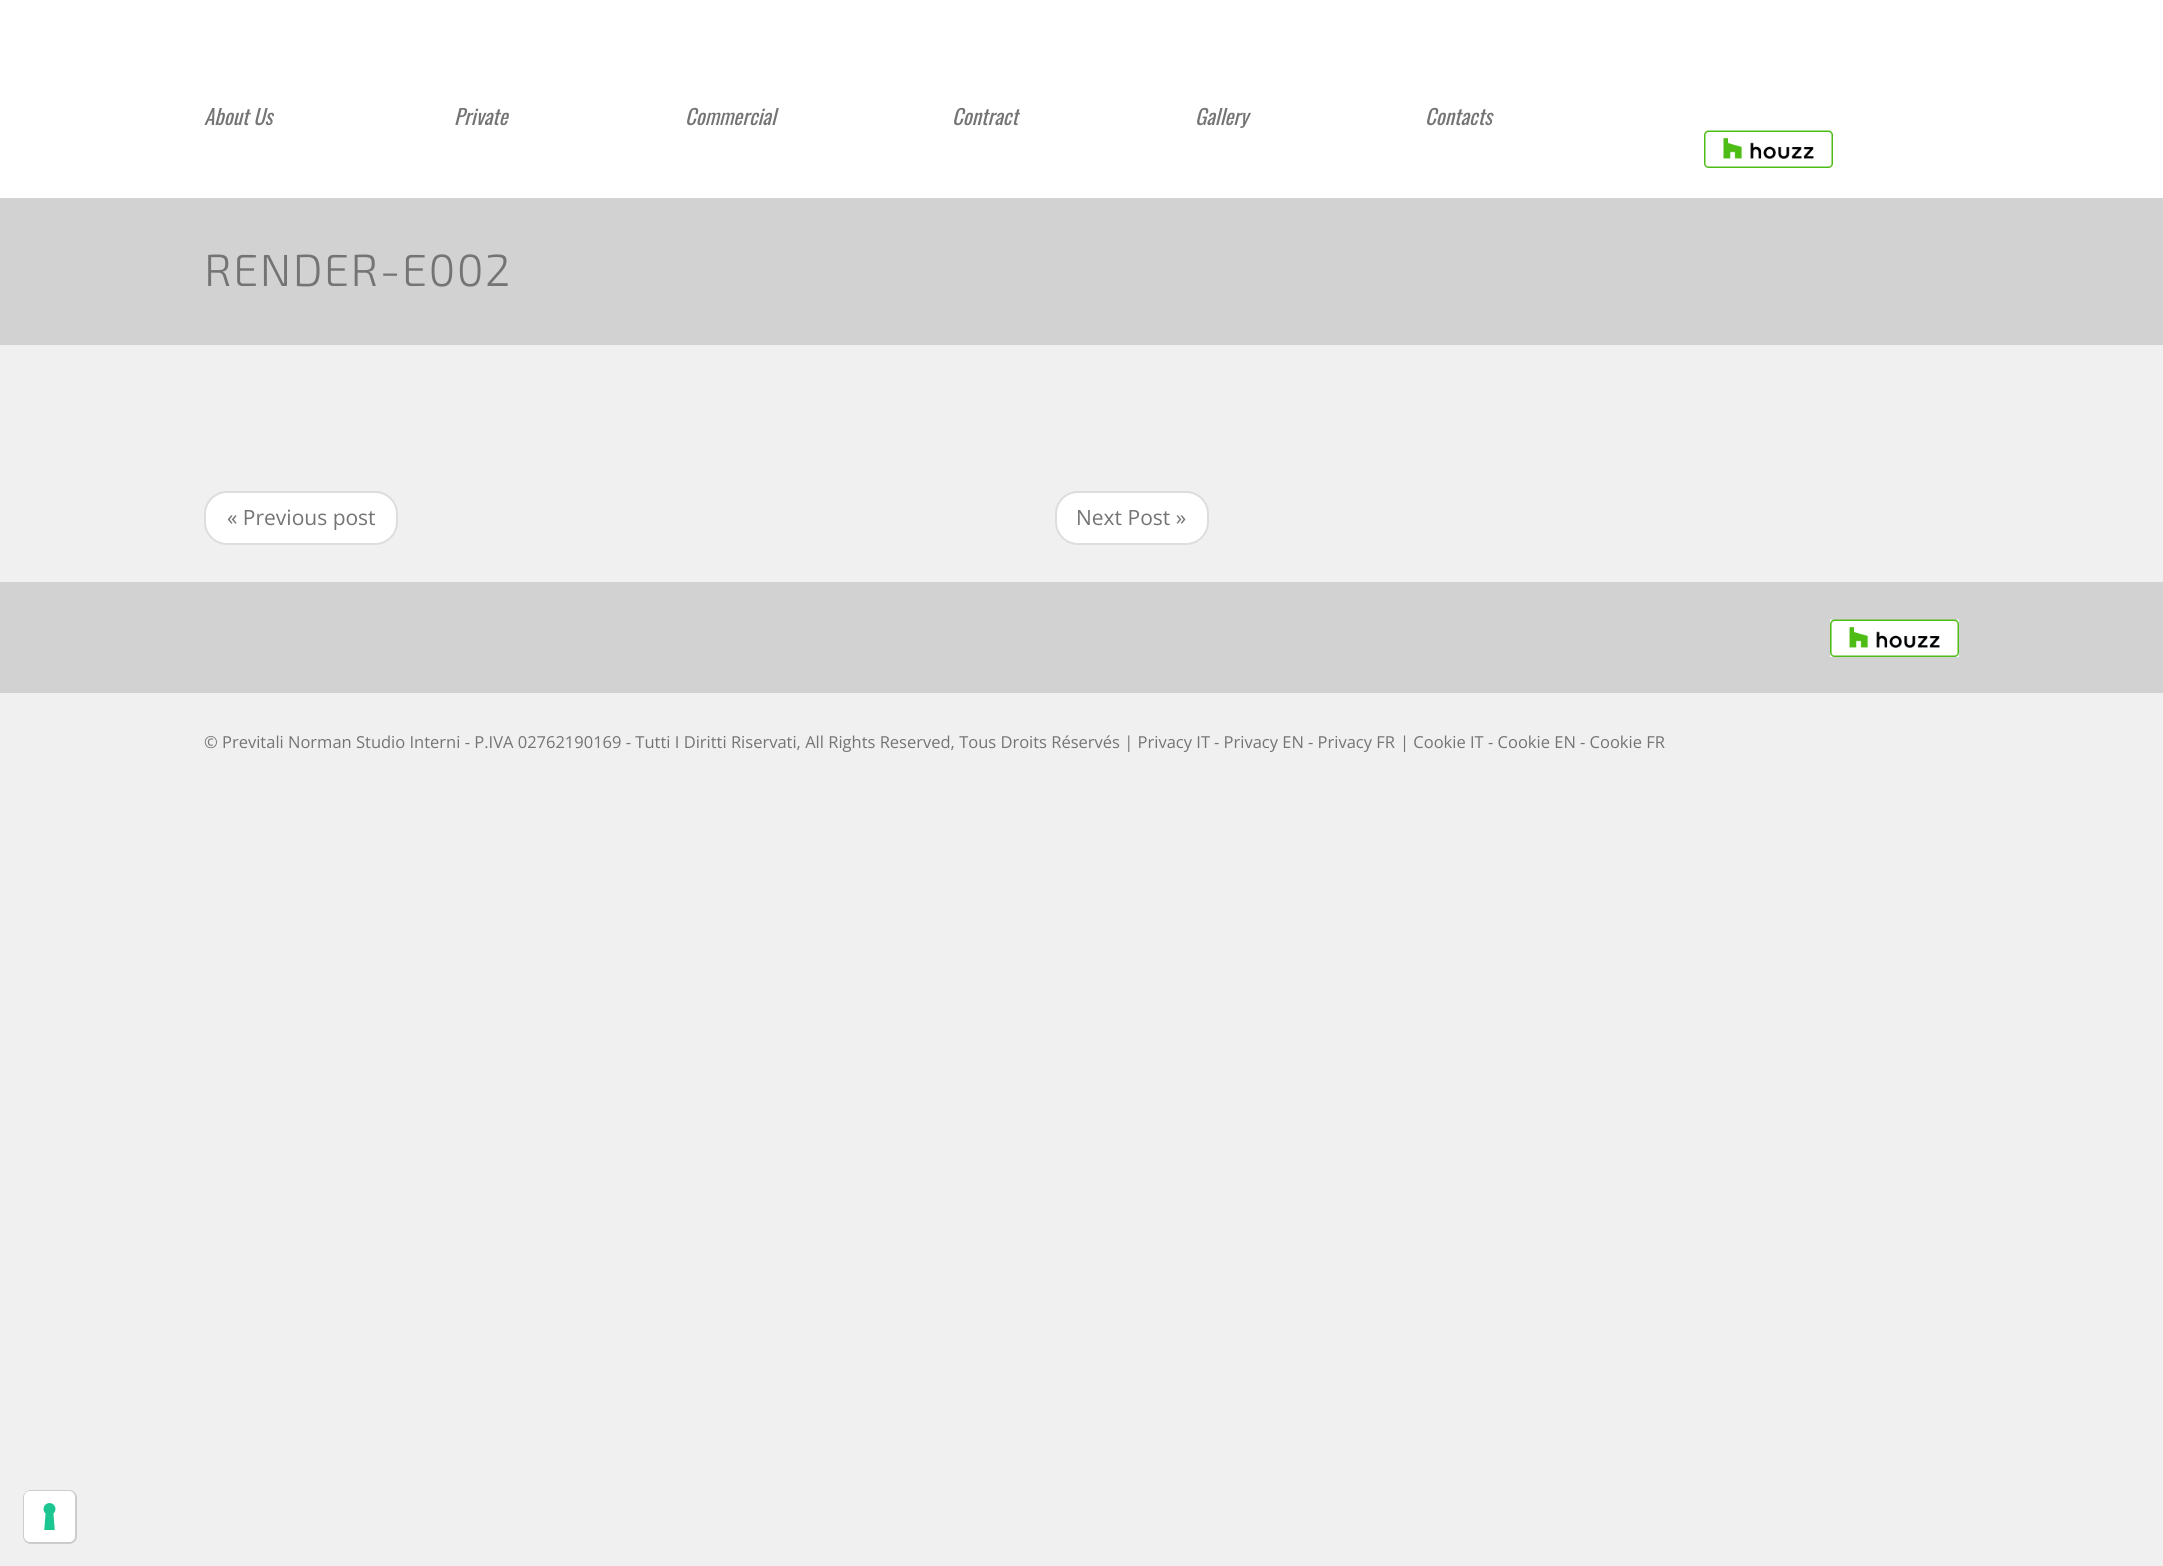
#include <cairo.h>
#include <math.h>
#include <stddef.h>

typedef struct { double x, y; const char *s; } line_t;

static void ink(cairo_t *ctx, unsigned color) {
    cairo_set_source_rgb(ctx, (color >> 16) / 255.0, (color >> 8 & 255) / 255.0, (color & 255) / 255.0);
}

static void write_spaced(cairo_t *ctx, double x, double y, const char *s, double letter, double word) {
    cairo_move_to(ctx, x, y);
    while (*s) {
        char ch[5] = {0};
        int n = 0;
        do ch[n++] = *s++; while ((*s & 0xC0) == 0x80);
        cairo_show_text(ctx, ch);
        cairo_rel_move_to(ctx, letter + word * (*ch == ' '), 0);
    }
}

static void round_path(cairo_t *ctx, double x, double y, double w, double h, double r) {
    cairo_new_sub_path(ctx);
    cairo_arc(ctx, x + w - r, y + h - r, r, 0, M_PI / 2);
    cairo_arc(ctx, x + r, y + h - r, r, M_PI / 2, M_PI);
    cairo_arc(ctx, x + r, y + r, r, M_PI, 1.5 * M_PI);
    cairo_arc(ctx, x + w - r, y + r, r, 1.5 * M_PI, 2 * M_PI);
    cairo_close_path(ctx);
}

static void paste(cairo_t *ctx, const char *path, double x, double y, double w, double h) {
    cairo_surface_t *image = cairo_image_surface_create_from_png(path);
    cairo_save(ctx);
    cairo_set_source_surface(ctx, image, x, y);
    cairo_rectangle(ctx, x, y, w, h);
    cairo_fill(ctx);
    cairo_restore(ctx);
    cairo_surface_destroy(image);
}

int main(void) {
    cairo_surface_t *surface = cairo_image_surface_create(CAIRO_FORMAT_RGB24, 2163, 1566);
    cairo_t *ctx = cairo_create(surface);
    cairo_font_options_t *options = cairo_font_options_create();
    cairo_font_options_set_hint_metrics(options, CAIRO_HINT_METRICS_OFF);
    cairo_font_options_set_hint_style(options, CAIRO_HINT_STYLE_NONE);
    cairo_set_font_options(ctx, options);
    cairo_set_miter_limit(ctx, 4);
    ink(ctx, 0xF0F0F0);
    cairo_paint(ctx);
    ink(ctx, 0xFFFFFF);
    cairo_rectangle(ctx, 0, 0, 2163, 198);
    cairo_fill(ctx);
    cairo_select_font_face(ctx, "Oswald", CAIRO_FONT_SLANT_ITALIC, CAIRO_FONT_WEIGHT_NORMAL);
    cairo_set_font_size(ctx, 21);
    ink(ctx, 0x747474);
    {
        static const line_t items[] = {
            {204, 125, "About Us"},
            {454, 125, "Private"},
            {685, 125, "Commercial"},
            {952, 125, "Contract"},
            {1195, 125, "Gallery"},
            {1425, 125, "Contacts"},
        };
        for (size_t i = 0; i < sizeof items / sizeof *items; i++) {
            cairo_move_to(ctx, items[i].x, items[i].y);
            cairo_show_text(ctx, items[i].s);
        }
    }
    paste(ctx, "media/1.png", 1704, 130, 129, 38);
    ink(ctx, 0xD2D2D2);
    cairo_rectangle(ctx, 0, 198, 2163, 147);
    cairo_fill(ctx);
    cairo_select_font_face(ctx, "Exo 2 Light", CAIRO_FONT_SLANT_NORMAL, CAIRO_FONT_WEIGHT_NORMAL);
    cairo_set_font_size(ctx, 45);
    ink(ctx, 0x747474);
    write_spaced(ctx, 204, 286, "RENDER-E002", 1.5, 0);
    ink(ctx, 0xFFFFFF);
    round_path(ctx, 205, 492, 192, 52, 22);
    cairo_fill_preserve(ctx);
    ink(ctx, 0xDDDDDD);
    cairo_stroke(ctx);
    cairo_select_font_face(ctx, "Open Sans", CAIRO_FONT_SLANT_NORMAL, CAIRO_FONT_WEIGHT_NORMAL);
    cairo_set_font_size(ctx, 21);
    ink(ctx, 0x747474);
    cairo_move_to(ctx, 227, 525);
    cairo_show_text(ctx, "« Previous post");
    ink(ctx, 0xFFFFFF);
    round_path(ctx, 1056, 492, 152, 52, 22);
    cairo_fill_preserve(ctx);
    ink(ctx, 0xDDDDDD);
    cairo_stroke(ctx);
    ink(ctx, 0x747474);
    cairo_move_to(ctx, 1076, 525);
    cairo_show_text(ctx, "Next Post »");
    ink(ctx, 0xD2D2D2);
    cairo_rectangle(ctx, 0, 582, 2163, 111);
    cairo_fill(ctx);
    paste(ctx, "media/2.png", 1830, 619, 129, 38);
    cairo_set_font_size(ctx, 16.5);
    ink(ctx, 0x747474);
    {
        static const line_t items[] = {
            {204, 748, "© Previtali Norman Studio Interni - P.IVA 02762190169 - Tutti I Diritti Riservati, All Rights Reserved, Tous Droits Réservés | Privacy IT"},
            {1214, 748, "- Privacy EN"},
            {1308, 748, "- Privacy FR"},
            {1400, 748, "| Cookie IT"},
            {1488, 748, "- Cookie EN"},
            {1580, 748, "- Cookie FR"},
        };
        for (size_t i = 0; i < sizeof items / sizeof *items; i++) {
            cairo_move_to(ctx, items[i].x, items[i].y);
            cairo_show_text(ctx, items[i].s);
        }
    }
    round_path(ctx, 24, 1491, 52, 52, 7);
    ink(ctx, 0xCCCCCC);
    cairo_stroke(ctx);
    ink(ctx, 0xFFFFFF);
    round_path(ctx, 24, 1491, 51, 51, 6);
    cairo_fill(ctx);
    paste(ctx, "media/3.png", 43, 1503, 13, 27);
    cairo_surface_write_to_png(surface, "image.png");
    cairo_font_options_destroy(options);
    cairo_destroy(ctx);
    cairo_surface_destroy(surface);
    return 0;
}
